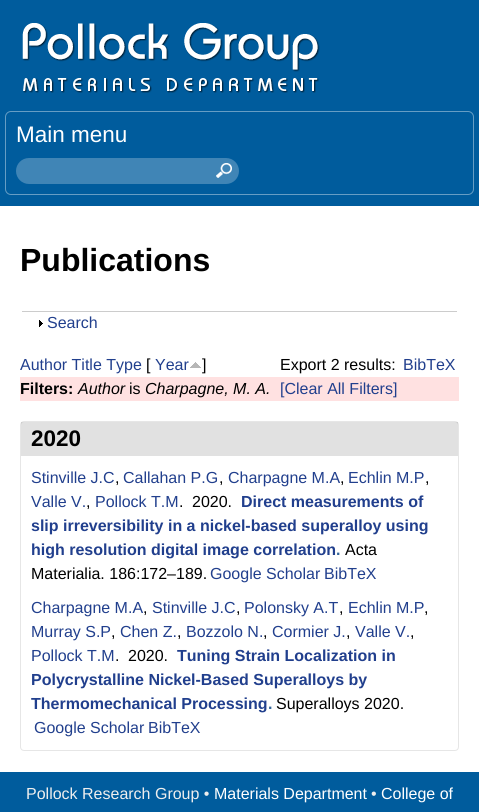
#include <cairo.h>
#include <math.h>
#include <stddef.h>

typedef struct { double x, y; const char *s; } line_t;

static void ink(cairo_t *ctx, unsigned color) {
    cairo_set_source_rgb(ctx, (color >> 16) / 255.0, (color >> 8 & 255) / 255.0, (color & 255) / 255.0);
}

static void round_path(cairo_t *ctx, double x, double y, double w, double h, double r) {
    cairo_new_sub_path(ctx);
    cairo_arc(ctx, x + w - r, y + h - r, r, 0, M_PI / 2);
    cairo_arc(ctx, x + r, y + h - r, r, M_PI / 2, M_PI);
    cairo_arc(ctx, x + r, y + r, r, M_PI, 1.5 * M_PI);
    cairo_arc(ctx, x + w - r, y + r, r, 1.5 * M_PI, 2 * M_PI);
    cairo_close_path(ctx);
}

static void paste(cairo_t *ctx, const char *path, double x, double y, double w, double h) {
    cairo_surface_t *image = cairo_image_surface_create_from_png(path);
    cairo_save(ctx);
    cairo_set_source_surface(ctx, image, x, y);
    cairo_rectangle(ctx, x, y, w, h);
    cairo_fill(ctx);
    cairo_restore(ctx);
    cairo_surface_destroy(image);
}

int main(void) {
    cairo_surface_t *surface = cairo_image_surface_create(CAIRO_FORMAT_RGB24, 479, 812);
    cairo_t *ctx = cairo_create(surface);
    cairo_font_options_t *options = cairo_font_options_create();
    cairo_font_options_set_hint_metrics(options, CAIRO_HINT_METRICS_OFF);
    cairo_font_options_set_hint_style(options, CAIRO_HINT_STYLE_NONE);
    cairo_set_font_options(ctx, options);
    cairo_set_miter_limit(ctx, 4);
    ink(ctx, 0x005C9D);
    cairo_paint(ctx);
    paste(ctx, "media/1.png", 22, 23, 298, 70);
    round_path(ctx, 5.5, 111.5, 468, 83, 5.5);
    ink(ctx, 0x669DC4);
    cairo_set_line_width(ctx, 1);
    cairo_stroke(ctx);
    cairo_select_font_face(ctx, "Liberation Sans", CAIRO_FONT_SLANT_NORMAL, CAIRO_FONT_WEIGHT_NORMAL);
    cairo_set_font_size(ctx, 22.5);
    ink(ctx, 0xFFFFFF);
    cairo_move_to(ctx, 16, 142);
    cairo_show_text(ctx, "Main menu");
    ink(ctx, 0x4085B6);
    round_path(ctx, 16, 158, 223, 26, 13);
    cairo_fill(ctx);
    paste(ctx, "media/2.png", 216, 163, 16, 15);
    ink(ctx, 0xFFFFFF);
    cairo_rectangle(ctx, 0, 206, 479, 566);
    cairo_fill(ctx);
    cairo_select_font_face(ctx, "Liberation Sans", CAIRO_FONT_SLANT_NORMAL, CAIRO_FONT_WEIGHT_BOLD);
    cairo_set_font_size(ctx, 32);
    ink(ctx, 0x000000);
    cairo_move_to(ctx, 20, 271);
    cairo_show_text(ctx, "Publications");
    ink(ctx, 0xCCCCCC);
    cairo_rectangle(ctx, 22, 311, 435, 1);
    cairo_fill(ctx);
    paste(ctx, "media/3.png", 39, 320, 4, 7);
    cairo_select_font_face(ctx, "Liberation Sans", CAIRO_FONT_SLANT_NORMAL, CAIRO_FONT_WEIGHT_NORMAL);
    cairo_set_font_size(ctx, 16);
    ink(ctx, 0x213F8D);
    cairo_move_to(ctx, 47, 328);
    cairo_show_text(ctx, "Search");
    cairo_move_to(ctx, 20, 370);
    cairo_show_text(ctx, "Author Title Type");
    ink(ctx, 0x000000);
    cairo_move_to(ctx, 146, 370);
    cairo_show_text(ctx, "[");
    ink(ctx, 0x213F8D);
    cairo_move_to(ctx, 155, 370);
    cairo_show_text(ctx, "Year");
    paste(ctx, "media/4.png", 190, 362, 11, 6);
    ink(ctx, 0x000000);
    cairo_move_to(ctx, 202, 370);
    cairo_show_text(ctx, "]");
    cairo_move_to(ctx, 280, 370);
    cairo_show_text(ctx, "Export 2 results:");
    ink(ctx, 0x213F8D);
    cairo_move_to(ctx, 403, 370);
    cairo_show_text(ctx, "BibTeX");
    ink(ctx, 0xFFE1E1);
    cairo_rectangle(ctx, 20, 377, 439, 24);
    cairo_fill(ctx);
    cairo_select_font_face(ctx, "Liberation Sans", CAIRO_FONT_SLANT_NORMAL, CAIRO_FONT_WEIGHT_BOLD);
    ink(ctx, 0x000000);
    cairo_move_to(ctx, 20, 394);
    cairo_show_text(ctx, "Filters:");
    cairo_select_font_face(ctx, "Liberation Sans", CAIRO_FONT_SLANT_ITALIC, CAIRO_FONT_WEIGHT_NORMAL);
    cairo_move_to(ctx, 78, 394);
    cairo_show_text(ctx, "Author");
    cairo_select_font_face(ctx, "Liberation Sans", CAIRO_FONT_SLANT_NORMAL, CAIRO_FONT_WEIGHT_NORMAL);
    cairo_move_to(ctx, 129, 394);
    cairo_show_text(ctx, "is");
    cairo_select_font_face(ctx, "Liberation Sans", CAIRO_FONT_SLANT_ITALIC, CAIRO_FONT_WEIGHT_NORMAL);
    cairo_move_to(ctx, 145, 394);
    cairo_show_text(ctx, "Charpagne, M. A.");
    cairo_select_font_face(ctx, "Liberation Sans", CAIRO_FONT_SLANT_NORMAL, CAIRO_FONT_WEIGHT_NORMAL);
    ink(ctx, 0x213F8D);
    cairo_move_to(ctx, 280, 394);
    cairo_show_text(ctx, "[Clear All Filters]");
    round_path(ctx, 20.5, 421.5, 438, 329, 3.5);
    ink(ctx, 0xE6E6E6);
    cairo_stroke(ctx);
    cairo_set_source_rgba(ctx, 0, 0, 0, 0.12);
    cairo_rectangle(ctx, 21, 422, 437, 34);
    cairo_fill(ctx);
    cairo_select_font_face(ctx, "Liberation Sans", CAIRO_FONT_SLANT_NORMAL, CAIRO_FONT_WEIGHT_BOLD);
    cairo_set_font_size(ctx, 22.5);
    ink(ctx, 0x000000);
    cairo_move_to(ctx, 31, 446);
    cairo_show_text(ctx, "2020");
    cairo_select_font_face(ctx, "Liberation Sans", CAIRO_FONT_SLANT_NORMAL, CAIRO_FONT_WEIGHT_NORMAL);
    cairo_set_font_size(ctx, 16);
    ink(ctx, 0x213F8D);
    cairo_move_to(ctx, 31, 483);
    cairo_show_text(ctx, "Stinville J.C");
    ink(ctx, 0x000000);
    cairo_move_to(ctx, 115, 483);
    cairo_show_text(ctx, ",");
    ink(ctx, 0x213F8D);
    cairo_move_to(ctx, 123, 483);
    cairo_show_text(ctx, "Callahan P.G");
    ink(ctx, 0x000000);
    cairo_move_to(ctx, 219, 483);
    cairo_show_text(ctx, ",");
    ink(ctx, 0x213F8D);
    cairo_move_to(ctx, 228, 483);
    cairo_show_text(ctx, "Charpagne M.A");
    ink(ctx, 0x000000);
    cairo_move_to(ctx, 340, 483);
    cairo_show_text(ctx, ",");
    ink(ctx, 0x213F8D);
    cairo_move_to(ctx, 348, 483);
    cairo_show_text(ctx, "Echlin M.P");
    ink(ctx, 0x000000);
    cairo_move_to(ctx, 425, 483);
    cairo_show_text(ctx, ",");
    ink(ctx, 0x213F8D);
    cairo_move_to(ctx, 31, 507);
    cairo_show_text(ctx, "Valle V.");
    ink(ctx, 0x000000);
    cairo_move_to(ctx, 86, 507);
    cairo_show_text(ctx, ",");
    ink(ctx, 0x213F8D);
    cairo_move_to(ctx, 95, 507);
    cairo_show_text(ctx, "Pollock T.M");
    ink(ctx, 0x000000);
    cairo_move_to(ctx, 179, 507);
    cairo_show_text(ctx, ".");
    cairo_move_to(ctx, 192, 507);
    cairo_show_text(ctx, "2020.");
    cairo_select_font_face(ctx, "Liberation Sans", CAIRO_FONT_SLANT_NORMAL, CAIRO_FONT_WEIGHT_BOLD);
    ink(ctx, 0x213F8D);
    {
        static const line_t items[] = {
            {241, 507, "Direct measurements of"},
            {31, 531, "slip irreversibility in a nickel-based superalloy using"},
            {31, 555, "high resolution digital image correlation"},
        };
        for (size_t i = 0; i < sizeof items / sizeof *items; i++) {
            cairo_move_to(ctx, items[i].x, items[i].y);
            cairo_show_text(ctx, items[i].s);
        }
    }
    ink(ctx, 0x336599);
    cairo_move_to(ctx, 336, 555);
    cairo_show_text(ctx, ".");
    cairo_select_font_face(ctx, "Liberation Sans", CAIRO_FONT_SLANT_NORMAL, CAIRO_FONT_WEIGHT_NORMAL);
    ink(ctx, 0x000000);
    cairo_move_to(ctx, 345, 555);
    cairo_show_text(ctx, "Acta");
    cairo_move_to(ctx, 31, 579);
    cairo_show_text(ctx, "Materialia. 186:172–189.");
    ink(ctx, 0x213F8D);
    {
        static const line_t items[] = {
            {210, 579, "Google Scholar"},
            {324, 579, "BibTeX"},
            {31, 613, "Charpagne M.A"},
        };
        for (size_t i = 0; i < sizeof items / sizeof *items; i++) {
            cairo_move_to(ctx, items[i].x, items[i].y);
            cairo_show_text(ctx, items[i].s);
        }
    }
    ink(ctx, 0x000000);
    cairo_move_to(ctx, 143, 613);
    cairo_show_text(ctx, ",");
    ink(ctx, 0x213F8D);
    cairo_move_to(ctx, 152, 613);
    cairo_show_text(ctx, "Stinville J.C");
    ink(ctx, 0x000000);
    cairo_move_to(ctx, 236, 613);
    cairo_show_text(ctx, ",");
    ink(ctx, 0x213F8D);
    cairo_move_to(ctx, 244, 613);
    cairo_show_text(ctx, "Polonsky A.T");
    ink(ctx, 0x000000);
    cairo_move_to(ctx, 339, 613);
    cairo_show_text(ctx, ",");
    ink(ctx, 0x213F8D);
    cairo_move_to(ctx, 348, 613);
    cairo_show_text(ctx, "Echlin M.P");
    ink(ctx, 0x000000);
    cairo_move_to(ctx, 424, 613);
    cairo_show_text(ctx, ",");
    ink(ctx, 0x213F8D);
    cairo_move_to(ctx, 31, 637);
    cairo_show_text(ctx, "Murray S.P");
    ink(ctx, 0x000000);
    cairo_move_to(ctx, 111, 637);
    cairo_show_text(ctx, ",");
    ink(ctx, 0x213F8D);
    cairo_move_to(ctx, 120, 637);
    cairo_show_text(ctx, "Chen Z.");
    ink(ctx, 0x000000);
    cairo_move_to(ctx, 177, 637);
    cairo_show_text(ctx, ",");
    ink(ctx, 0x213F8D);
    cairo_move_to(ctx, 186, 637);
    cairo_show_text(ctx, "Bozzolo N.");
    ink(ctx, 0x000000);
    cairo_move_to(ctx, 263, 637);
    cairo_show_text(ctx, ",");
    ink(ctx, 0x213F8D);
    cairo_move_to(ctx, 272, 637);
    cairo_show_text(ctx, "Cormier J.");
    ink(ctx, 0x000000);
    cairo_move_to(ctx, 346, 637);
    cairo_show_text(ctx, ",");
    ink(ctx, 0x213F8D);
    cairo_move_to(ctx, 355, 637);
    cairo_show_text(ctx, "Valle V.");
    ink(ctx, 0x000000);
    cairo_move_to(ctx, 410, 637);
    cairo_show_text(ctx, ",");
    ink(ctx, 0x213F8D);
    cairo_move_to(ctx, 31, 661);
    cairo_show_text(ctx, "Pollock T.M");
    ink(ctx, 0x000000);
    cairo_move_to(ctx, 115, 661);
    cairo_show_text(ctx, ".");
    cairo_move_to(ctx, 128, 661);
    cairo_show_text(ctx, "2020.");
    cairo_select_font_face(ctx, "Liberation Sans", CAIRO_FONT_SLANT_NORMAL, CAIRO_FONT_WEIGHT_BOLD);
    ink(ctx, 0x213F8D);
    {
        static const line_t items[] = {
            {177, 661, "Tuning Strain Localization in"},
            {31, 685, "Polycrystalline Nickel-Based Superalloys by"},
            {31, 709, "Thermomechanical Processing"},
        };
        for (size_t i = 0; i < sizeof items / sizeof *items; i++) {
            cairo_move_to(ctx, items[i].x, items[i].y);
            cairo_show_text(ctx, items[i].s);
        }
    }
    ink(ctx, 0x336599);
    cairo_move_to(ctx, 268, 709);
    cairo_show_text(ctx, ".");
    cairo_select_font_face(ctx, "Liberation Sans", CAIRO_FONT_SLANT_NORMAL, CAIRO_FONT_WEIGHT_NORMAL);
    ink(ctx, 0x000000);
    cairo_move_to(ctx, 276, 709);
    cairo_show_text(ctx, "Superalloys 2020.");
    ink(ctx, 0x213F8D);
    cairo_move_to(ctx, 34, 733);
    cairo_show_text(ctx, "Google Scholar");
    cairo_move_to(ctx, 148, 733);
    cairo_show_text(ctx, "BibTeX");
    ink(ctx, 0xEEEEEE);
    cairo_move_to(ctx, 26, 799);
    cairo_show_text(ctx, "Pollock Research Group •");
    ink(ctx, 0xFFFFFF);
    cairo_move_to(ctx, 214, 799);
    cairo_show_text(ctx, "Materials Department");
    ink(ctx, 0xEEEEEE);
    cairo_move_to(ctx, 371, 799);
    cairo_show_text(ctx, "•");
    ink(ctx, 0xFFFFFF);
    cairo_move_to(ctx, 381, 799);
    cairo_show_text(ctx, "College of");
    cairo_surface_write_to_png(surface, "image.png");
    cairo_font_options_destroy(options);
    cairo_destroy(ctx);
    cairo_surface_destroy(surface);
    return 0;
}
